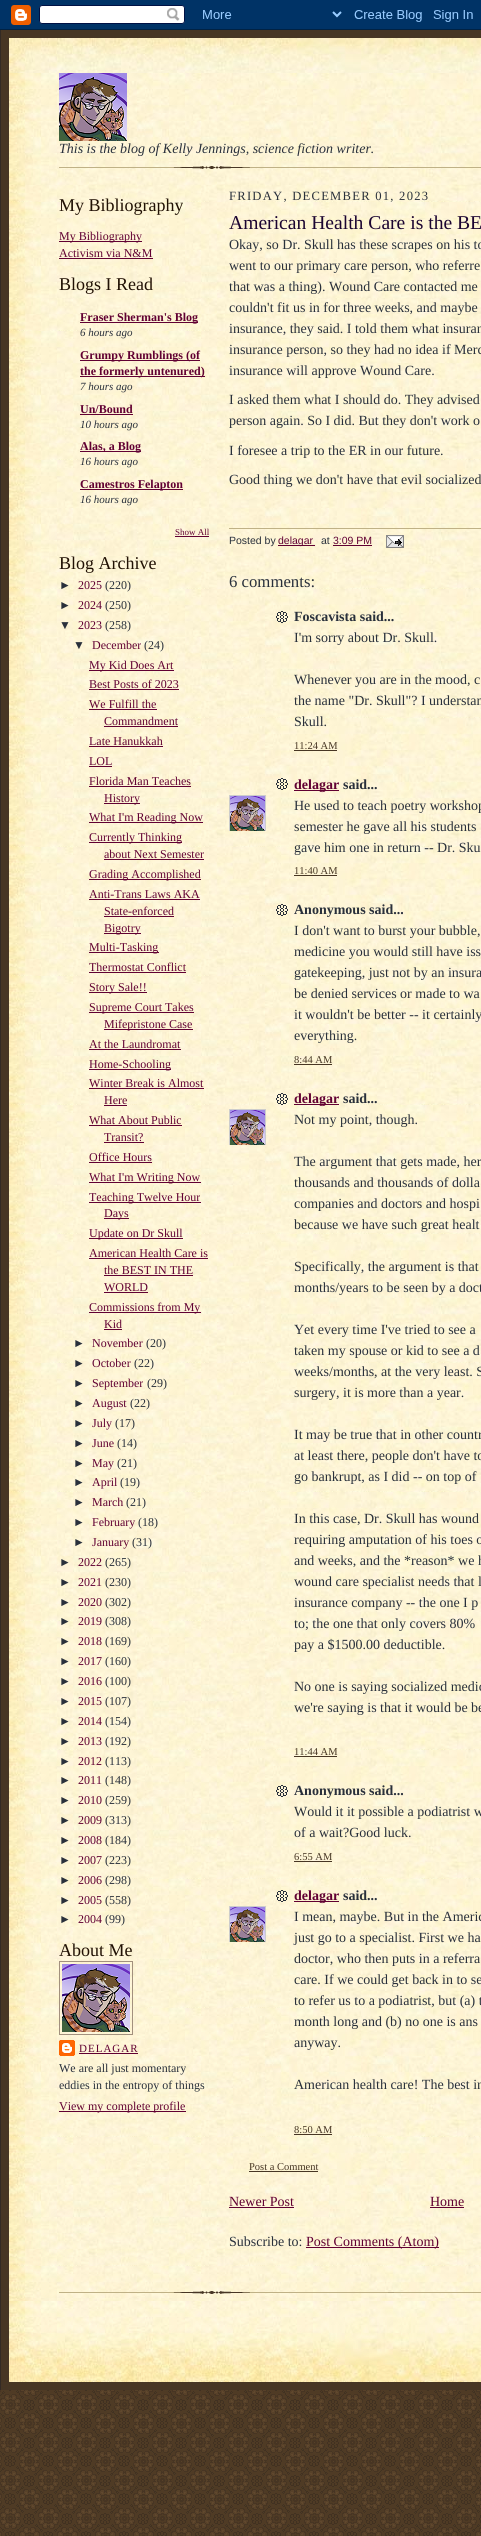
#include <cairo.h>
#include <math.h>
#include <stddef.h>

typedef struct { double x, y; const char *s; } line_t;

static void ink(cairo_t *ctx, unsigned color) {
    cairo_set_source_rgb(ctx, (color >> 16) / 255.0, (color >> 8 & 255) / 255.0, (color & 255) / 255.0);
}

static void write_spaced(cairo_t *ctx, double x, double y, const char *s, double letter, double word) {
    cairo_move_to(ctx, x, y);
    while (*s) {
        char ch[5] = {0};
        int n = 0;
        do ch[n++] = *s++; while ((*s & 0xC0) == 0x80);
        cairo_show_text(ctx, ch);
        cairo_rel_move_to(ctx, letter + word * (*ch == ' '), 0);
    }
}

static void paste(cairo_t *ctx, const char *path, double x, double y, double w, double h) {
    cairo_surface_t *image = cairo_image_surface_create_from_png(path);
    cairo_save(ctx);
    cairo_set_source_surface(ctx, image, x, y);
    cairo_rectangle(ctx, x, y, w, h);
    cairo_fill(ctx);
    cairo_restore(ctx);
    cairo_surface_destroy(image);
}

int main(void) {
    cairo_surface_t *surface = cairo_image_surface_create(CAIRO_FORMAT_RGB24, 481, 2536);
    cairo_t *ctx = cairo_create(surface);
    cairo_font_options_t *options = cairo_font_options_create();
    cairo_font_options_set_hint_metrics(options, CAIRO_HINT_METRICS_OFF);
    cairo_font_options_set_hint_style(options, CAIRO_HINT_STYLE_NONE);
    cairo_set_font_options(ctx, options);
    cairo_set_miter_limit(ctx, 4);
    ink(ctx, 0xFFFFFF);
    cairo_paint(ctx);
    paste(ctx, "media/1.png", 0, 2390, 481, 146);
    paste(ctx, "media/2.png", 0, 0, 481, 30);
    ink(ctx, 0x473624);
    cairo_rectangle(ctx, 1, 30, 480, 2360);
    cairo_fill(ctx);
    ink(ctx, 0x332A24);
    cairo_rectangle(ctx, 0, 30, 1, 2360);
    cairo_fill(ctx);
    paste(ctx, "media/3.png", 9, 38, 472, 35);
    paste(ctx, "media/4.png", 9, 73, 472, 2228);
    paste(ctx, "media/5.png", 59, 166, 422, 3);
    paste(ctx, "media/6.png", 59, 73, 68, 68);
    cairo_select_font_face(ctx, "Liberation Serif", CAIRO_FONT_SLANT_ITALIC, CAIRO_FONT_WEIGHT_NORMAL);
    cairo_set_font_size(ctx, 14);
    ink(ctx, 0x29303B);
    cairo_move_to(ctx, 59, 153);
    cairo_show_text(ctx, "This is the blog of Kelly Jennings, science fiction writer.");
    cairo_select_font_face(ctx, "Liberation Serif", CAIRO_FONT_SLANT_NORMAL, CAIRO_FONT_WEIGHT_NORMAL);
    cairo_set_font_size(ctx, 18);
    ink(ctx, 0x211104);
    cairo_move_to(ctx, 59, 211);
    cairo_show_text(ctx, "My Bibliography");
    ink(ctx, 0x610032);
    cairo_rectangle(ctx, 59, 241, 83, 1);
    cairo_fill(ctx);
    cairo_set_font_size(ctx, 12);
    cairo_move_to(ctx, 59, 240);
    cairo_show_text(ctx, "My Bibliography");
    cairo_move_to(ctx, 59, 257);
    cairo_show_text(ctx, "Activism via N&M");
    cairo_rectangle(ctx, 59, 258, 94, 1);
    cairo_fill(ctx);
    cairo_set_font_size(ctx, 18);
    ink(ctx, 0x211104);
    cairo_move_to(ctx, 59, 290);
    cairo_show_text(ctx, "Blogs I Read");
    ink(ctx, 0x610032);
    cairo_rectangle(ctx, 80, 322, 118, 1);
    cairo_fill(ctx);
    cairo_select_font_face(ctx, "Liberation Serif", CAIRO_FONT_SLANT_NORMAL, CAIRO_FONT_WEIGHT_BOLD);
    cairo_set_font_size(ctx, 12);
    cairo_move_to(ctx, 80, 321);
    cairo_show_text(ctx, "Fraser Sherman's Blog");
    cairo_select_font_face(ctx, "Liberation Serif", CAIRO_FONT_SLANT_ITALIC, CAIRO_FONT_WEIGHT_NORMAL);
    cairo_set_font_size(ctx, 11);
    ink(ctx, 0x29303B);
    cairo_move_to(ctx, 80, 336);
    cairo_show_text(ctx, "6 hours ago");
    ink(ctx, 0x610032);
    cairo_rectangle(ctx, 80, 360, 120, 1);
    cairo_fill(ctx);
    cairo_select_font_face(ctx, "Liberation Serif", CAIRO_FONT_SLANT_NORMAL, CAIRO_FONT_WEIGHT_BOLD);
    cairo_set_font_size(ctx, 12);
    cairo_move_to(ctx, 80, 359);
    cairo_show_text(ctx, "Grumpy Rumblings (of");
    cairo_rectangle(ctx, 80, 376, 125, 1);
    cairo_fill(ctx);
    cairo_move_to(ctx, 80, 375);
    cairo_show_text(ctx, "the formerly untenured)");
    cairo_select_font_face(ctx, "Liberation Serif", CAIRO_FONT_SLANT_ITALIC, CAIRO_FONT_WEIGHT_NORMAL);
    cairo_set_font_size(ctx, 11);
    ink(ctx, 0x29303B);
    cairo_move_to(ctx, 80, 390);
    cairo_show_text(ctx, "7 hours ago");
    cairo_select_font_face(ctx, "Liberation Serif", CAIRO_FONT_SLANT_NORMAL, CAIRO_FONT_WEIGHT_BOLD);
    cairo_set_font_size(ctx, 12);
    ink(ctx, 0x610032);
    cairo_move_to(ctx, 80, 413);
    cairo_show_text(ctx, "Un/Bound");
    cairo_rectangle(ctx, 80, 414, 53, 1);
    cairo_fill(ctx);
    cairo_select_font_face(ctx, "Liberation Serif", CAIRO_FONT_SLANT_ITALIC, CAIRO_FONT_WEIGHT_NORMAL);
    cairo_set_font_size(ctx, 11);
    ink(ctx, 0x29303B);
    cairo_move_to(ctx, 80, 428);
    cairo_show_text(ctx, "10 hours ago");
    ink(ctx, 0x610032);
    cairo_rectangle(ctx, 80, 451, 61, 1);
    cairo_fill(ctx);
    cairo_select_font_face(ctx, "Liberation Serif", CAIRO_FONT_SLANT_NORMAL, CAIRO_FONT_WEIGHT_BOLD);
    cairo_set_font_size(ctx, 12);
    cairo_move_to(ctx, 80, 450);
    cairo_show_text(ctx, "Alas, a Blog");
    cairo_select_font_face(ctx, "Liberation Serif", CAIRO_FONT_SLANT_ITALIC, CAIRO_FONT_WEIGHT_NORMAL);
    cairo_set_font_size(ctx, 11);
    ink(ctx, 0x29303B);
    cairo_move_to(ctx, 80, 465);
    cairo_show_text(ctx, "16 hours ago");
    ink(ctx, 0x610032);
    cairo_rectangle(ctx, 80, 489, 103, 1);
    cairo_fill(ctx);
    cairo_select_font_face(ctx, "Liberation Serif", CAIRO_FONT_SLANT_NORMAL, CAIRO_FONT_WEIGHT_BOLD);
    cairo_set_font_size(ctx, 12);
    cairo_move_to(ctx, 80, 488);
    cairo_show_text(ctx, "Camestros Felapton");
    cairo_select_font_face(ctx, "Liberation Serif", CAIRO_FONT_SLANT_ITALIC, CAIRO_FONT_WEIGHT_NORMAL);
    cairo_set_font_size(ctx, 11);
    ink(ctx, 0x29303B);
    cairo_move_to(ctx, 80, 503);
    cairo_show_text(ctx, "16 hours ago");
    cairo_select_font_face(ctx, "Liberation Serif", CAIRO_FONT_SLANT_NORMAL, CAIRO_FONT_WEIGHT_NORMAL);
    cairo_set_font_size(ctx, 9);
    ink(ctx, 0x610032);
    cairo_move_to(ctx, 175, 535);
    cairo_show_text(ctx, "Show All");
    cairo_rectangle(ctx, 175, 536, 34, 1);
    cairo_fill(ctx);
    cairo_set_font_size(ctx, 18);
    ink(ctx, 0x211104);
    cairo_move_to(ctx, 59, 569);
    cairo_show_text(ctx, "Blog Archive");
    cairo_select_font_face(ctx, "Liberation Sans", CAIRO_FONT_SLANT_NORMAL, CAIRO_FONT_WEIGHT_NORMAL);
    cairo_set_font_size(ctx, 12);
    ink(ctx, 0x29303B);
    cairo_move_to(ctx, 59, 589);
    cairo_show_text(ctx, "►");
    cairo_select_font_face(ctx, "Liberation Serif", CAIRO_FONT_SLANT_NORMAL, CAIRO_FONT_WEIGHT_NORMAL);
    ink(ctx, 0x610032);
    cairo_move_to(ctx, 78, 589);
    cairo_show_text(ctx, "2025");
    ink(ctx, 0x29303B);
    cairo_move_to(ctx, 105, 589);
    cairo_show_text(ctx, "(220)");
    cairo_select_font_face(ctx, "Liberation Sans", CAIRO_FONT_SLANT_NORMAL, CAIRO_FONT_WEIGHT_NORMAL);
    cairo_move_to(ctx, 59, 609);
    cairo_show_text(ctx, "►");
    cairo_select_font_face(ctx, "Liberation Serif", CAIRO_FONT_SLANT_NORMAL, CAIRO_FONT_WEIGHT_NORMAL);
    ink(ctx, 0x610032);
    cairo_move_to(ctx, 78, 609);
    cairo_show_text(ctx, "2024");
    ink(ctx, 0x29303B);
    cairo_move_to(ctx, 105, 609);
    cairo_show_text(ctx, "(250)");
    cairo_select_font_face(ctx, "Liberation Sans", CAIRO_FONT_SLANT_NORMAL, CAIRO_FONT_WEIGHT_NORMAL);
    cairo_move_to(ctx, 59, 629);
    cairo_show_text(ctx, "▼");
    cairo_select_font_face(ctx, "Liberation Serif", CAIRO_FONT_SLANT_NORMAL, CAIRO_FONT_WEIGHT_NORMAL);
    ink(ctx, 0x610032);
    cairo_move_to(ctx, 78, 629);
    cairo_show_text(ctx, "2023");
    ink(ctx, 0x29303B);
    cairo_move_to(ctx, 105, 629);
    cairo_show_text(ctx, "(258)");
    cairo_select_font_face(ctx, "Liberation Sans", CAIRO_FONT_SLANT_NORMAL, CAIRO_FONT_WEIGHT_NORMAL);
    cairo_move_to(ctx, 73, 649);
    cairo_show_text(ctx, "▼");
    cairo_select_font_face(ctx, "Liberation Serif", CAIRO_FONT_SLANT_NORMAL, CAIRO_FONT_WEIGHT_NORMAL);
    ink(ctx, 0x610032);
    cairo_move_to(ctx, 92, 649);
    cairo_show_text(ctx, "December");
    ink(ctx, 0x29303B);
    cairo_move_to(ctx, 144, 649);
    cairo_show_text(ctx, "(24)");
    ink(ctx, 0x610032);
    cairo_rectangle(ctx, 89, 670, 85, 1);
    cairo_fill(ctx);
    cairo_move_to(ctx, 89, 669);
    cairo_show_text(ctx, "My Kid Does Art");
    cairo_move_to(ctx, 89, 688);
    cairo_show_text(ctx, "Best Posts of 2023");
    cairo_rectangle(ctx, 89, 689, 90, 1);
    cairo_fill(ctx);
    cairo_move_to(ctx, 89, 708);
    cairo_show_text(ctx, "We Fulfill the");
    cairo_rectangle(ctx, 89, 709, 68, 1);
    cairo_fill(ctx);
    cairo_move_to(ctx, 104, 725);
    cairo_show_text(ctx, "Commandment");
    cairo_rectangle(ctx, 104, 726, 74, 1);
    cairo_fill(ctx);
    cairo_move_to(ctx, 89, 745);
    cairo_show_text(ctx, "Late Hanukkah");
    cairo_rectangle(ctx, 89, 746, 74, 1);
    cairo_fill(ctx);
    cairo_move_to(ctx, 89, 765);
    cairo_show_text(ctx, "LOL");
    cairo_rectangle(ctx, 89, 766, 23, 1);
    cairo_fill(ctx);
    cairo_move_to(ctx, 89, 785);
    cairo_show_text(ctx, "Florida Man Teaches");
    cairo_rectangle(ctx, 89, 786, 102, 1);
    cairo_fill(ctx);
    cairo_rectangle(ctx, 104, 803, 36, 1);
    cairo_fill(ctx);
    cairo_move_to(ctx, 104, 802);
    cairo_show_text(ctx, "History");
    cairo_rectangle(ctx, 89, 822, 114, 1);
    cairo_fill(ctx);
    cairo_move_to(ctx, 89, 821);
    cairo_show_text(ctx, "What I'm Reading Now");
    cairo_rectangle(ctx, 89, 842, 93, 1);
    cairo_fill(ctx);
    cairo_move_to(ctx, 89, 841);
    cairo_show_text(ctx, "Currently Thinking");
    cairo_move_to(ctx, 104, 858);
    cairo_show_text(ctx, "about Next Semester");
    cairo_rectangle(ctx, 104, 859, 100, 1);
    cairo_fill(ctx);
    cairo_rectangle(ctx, 89, 879, 112, 1);
    cairo_fill(ctx);
    cairo_move_to(ctx, 89, 878);
    cairo_show_text(ctx, "Grading Accomplished");
    cairo_move_to(ctx, 89, 898);
    cairo_show_text(ctx, "Anti-Trans Laws AKA");
    cairo_rectangle(ctx, 89, 899, 111, 1);
    cairo_fill(ctx);
    cairo_move_to(ctx, 104, 915);
    cairo_show_text(ctx, "State-enforced");
    cairo_rectangle(ctx, 104, 916, 70, 1);
    cairo_fill(ctx);
    cairo_rectangle(ctx, 104, 933, 37, 1);
    cairo_fill(ctx);
    cairo_move_to(ctx, 104, 932);
    cairo_show_text(ctx, "Bigotry");
    cairo_rectangle(ctx, 89, 952, 70, 1);
    cairo_fill(ctx);
    cairo_move_to(ctx, 89, 951);
    cairo_show_text(ctx, "Multi-Tasking");
    cairo_move_to(ctx, 89, 971);
    cairo_show_text(ctx, "Thermostat Conflict");
    cairo_rectangle(ctx, 89, 972, 97, 1);
    cairo_fill(ctx);
    cairo_rectangle(ctx, 89, 992, 58, 1);
    cairo_fill(ctx);
    cairo_move_to(ctx, 89, 991);
    cairo_show_text(ctx, "Story Sale!!");
    cairo_rectangle(ctx, 89, 1012, 105, 1);
    cairo_fill(ctx);
    cairo_move_to(ctx, 89, 1011);
    cairo_show_text(ctx, "Supreme Court Takes");
    cairo_rectangle(ctx, 104, 1029, 89, 1);
    cairo_fill(ctx);
    cairo_move_to(ctx, 104, 1028);
    cairo_show_text(ctx, "Mifepristone Case");
    cairo_move_to(ctx, 89, 1048);
    cairo_show_text(ctx, "At the Laundromat");
    cairo_rectangle(ctx, 89, 1049, 92, 1);
    cairo_fill(ctx);
    cairo_rectangle(ctx, 89, 1069, 82, 1);
    cairo_fill(ctx);
    cairo_move_to(ctx, 89, 1068);
    cairo_show_text(ctx, "Home-Schooling");
    cairo_move_to(ctx, 89, 1087);
    cairo_show_text(ctx, "Winter Break is Almost");
    cairo_rectangle(ctx, 89, 1088, 115, 1);
    cairo_fill(ctx);
    cairo_move_to(ctx, 104, 1104);
    cairo_show_text(ctx, "Here");
    cairo_rectangle(ctx, 104, 1105, 23, 1);
    cairo_fill(ctx);
    cairo_move_to(ctx, 89, 1124);
    cairo_show_text(ctx, "What About Public");
    cairo_rectangle(ctx, 89, 1125, 93, 1);
    cairo_fill(ctx);
    cairo_move_to(ctx, 104, 1141);
    cairo_show_text(ctx, "Transit?");
    cairo_rectangle(ctx, 104, 1142, 40, 1);
    cairo_fill(ctx);
    cairo_move_to(ctx, 89, 1161);
    cairo_show_text(ctx, "Office Hours");
    cairo_rectangle(ctx, 89, 1162, 63, 1);
    cairo_fill(ctx);
    cairo_rectangle(ctx, 89, 1182, 112, 1);
    cairo_fill(ctx);
    cairo_move_to(ctx, 89, 1181);
    cairo_show_text(ctx, "What I'm Writing Now");
    cairo_rectangle(ctx, 89, 1202, 112, 1);
    cairo_fill(ctx);
    cairo_move_to(ctx, 89, 1201);
    cairo_show_text(ctx, "Teaching Twelve Hour");
    cairo_rectangle(ctx, 104, 1218, 25, 1);
    cairo_fill(ctx);
    cairo_move_to(ctx, 104, 1217);
    cairo_show_text(ctx, "Days");
    cairo_rectangle(ctx, 89, 1238, 94, 1);
    cairo_fill(ctx);
    cairo_move_to(ctx, 89, 1237);
    cairo_show_text(ctx, "Update on Dr Skull");
    cairo_move_to(ctx, 89, 1257);
    cairo_show_text(ctx, "American Health Care is");
    cairo_rectangle(ctx, 89, 1258, 119, 1);
    cairo_fill(ctx);
    cairo_move_to(ctx, 104, 1274);
    cairo_show_text(ctx, "the BEST IN THE");
    cairo_rectangle(ctx, 104, 1275, 89, 1);
    cairo_fill(ctx);
    cairo_move_to(ctx, 104, 1291);
    cairo_show_text(ctx, "WORLD");
    cairo_rectangle(ctx, 104, 1292, 44, 1);
    cairo_fill(ctx);
    cairo_rectangle(ctx, 89, 1312, 112, 1);
    cairo_fill(ctx);
    cairo_move_to(ctx, 89, 1311);
    cairo_show_text(ctx, "Commissions from My");
    cairo_move_to(ctx, 104, 1328);
    cairo_show_text(ctx, "Kid");
    cairo_rectangle(ctx, 104, 1329, 18, 1);
    cairo_fill(ctx);
    cairo_select_font_face(ctx, "Liberation Sans", CAIRO_FONT_SLANT_NORMAL, CAIRO_FONT_WEIGHT_NORMAL);
    ink(ctx, 0x29303B);
    cairo_move_to(ctx, 73, 1347);
    cairo_show_text(ctx, "►");
    cairo_select_font_face(ctx, "Liberation Serif", CAIRO_FONT_SLANT_NORMAL, CAIRO_FONT_WEIGHT_NORMAL);
    ink(ctx, 0x610032);
    cairo_move_to(ctx, 92, 1347);
    cairo_show_text(ctx, "November");
    ink(ctx, 0x29303B);
    cairo_move_to(ctx, 146, 1347);
    cairo_show_text(ctx, "(20)");
    cairo_select_font_face(ctx, "Liberation Sans", CAIRO_FONT_SLANT_NORMAL, CAIRO_FONT_WEIGHT_NORMAL);
    cairo_move_to(ctx, 73, 1367);
    cairo_show_text(ctx, "►");
    cairo_select_font_face(ctx, "Liberation Serif", CAIRO_FONT_SLANT_NORMAL, CAIRO_FONT_WEIGHT_NORMAL);
    ink(ctx, 0x610032);
    cairo_move_to(ctx, 92, 1367);
    cairo_show_text(ctx, "October");
    ink(ctx, 0x29303B);
    cairo_move_to(ctx, 134, 1367);
    cairo_show_text(ctx, "(22)");
    cairo_select_font_face(ctx, "Liberation Sans", CAIRO_FONT_SLANT_NORMAL, CAIRO_FONT_WEIGHT_NORMAL);
    cairo_move_to(ctx, 73, 1387);
    cairo_show_text(ctx, "►");
    cairo_select_font_face(ctx, "Liberation Serif", CAIRO_FONT_SLANT_NORMAL, CAIRO_FONT_WEIGHT_NORMAL);
    ink(ctx, 0x610032);
    cairo_move_to(ctx, 92, 1387);
    cairo_show_text(ctx, "September");
    ink(ctx, 0x29303B);
    cairo_move_to(ctx, 147, 1387);
    cairo_show_text(ctx, "(29)");
    cairo_select_font_face(ctx, "Liberation Sans", CAIRO_FONT_SLANT_NORMAL, CAIRO_FONT_WEIGHT_NORMAL);
    cairo_move_to(ctx, 73, 1407);
    cairo_show_text(ctx, "►");
    cairo_select_font_face(ctx, "Liberation Serif", CAIRO_FONT_SLANT_NORMAL, CAIRO_FONT_WEIGHT_NORMAL);
    ink(ctx, 0x610032);
    cairo_move_to(ctx, 92, 1407);
    cairo_show_text(ctx, "August");
    ink(ctx, 0x29303B);
    cairo_move_to(ctx, 130, 1407);
    cairo_show_text(ctx, "(22)");
    cairo_select_font_face(ctx, "Liberation Sans", CAIRO_FONT_SLANT_NORMAL, CAIRO_FONT_WEIGHT_NORMAL);
    cairo_move_to(ctx, 73, 1427);
    cairo_show_text(ctx, "►");
    cairo_select_font_face(ctx, "Liberation Serif", CAIRO_FONT_SLANT_NORMAL, CAIRO_FONT_WEIGHT_NORMAL);
    ink(ctx, 0x610032);
    cairo_move_to(ctx, 92, 1427);
    cairo_show_text(ctx, "July");
    ink(ctx, 0x29303B);
    cairo_move_to(ctx, 115, 1427);
    cairo_show_text(ctx, "(17)");
    cairo_select_font_face(ctx, "Liberation Sans", CAIRO_FONT_SLANT_NORMAL, CAIRO_FONT_WEIGHT_NORMAL);
    cairo_move_to(ctx, 73, 1447);
    cairo_show_text(ctx, "►");
    cairo_select_font_face(ctx, "Liberation Serif", CAIRO_FONT_SLANT_NORMAL, CAIRO_FONT_WEIGHT_NORMAL);
    ink(ctx, 0x610032);
    cairo_move_to(ctx, 92, 1447);
    cairo_show_text(ctx, "June");
    ink(ctx, 0x29303B);
    cairo_move_to(ctx, 117, 1447);
    cairo_show_text(ctx, "(14)");
    cairo_select_font_face(ctx, "Liberation Sans", CAIRO_FONT_SLANT_NORMAL, CAIRO_FONT_WEIGHT_NORMAL);
    cairo_move_to(ctx, 73, 1467);
    cairo_show_text(ctx, "►");
    cairo_select_font_face(ctx, "Liberation Serif", CAIRO_FONT_SLANT_NORMAL, CAIRO_FONT_WEIGHT_NORMAL);
    ink(ctx, 0x610032);
    cairo_move_to(ctx, 92, 1467);
    cairo_show_text(ctx, "May");
    ink(ctx, 0x29303B);
    cairo_move_to(ctx, 117, 1467);
    cairo_show_text(ctx, "(21)");
    cairo_select_font_face(ctx, "Liberation Sans", CAIRO_FONT_SLANT_NORMAL, CAIRO_FONT_WEIGHT_NORMAL);
    cairo_move_to(ctx, 73, 1486);
    cairo_show_text(ctx, "►");
    cairo_select_font_face(ctx, "Liberation Serif", CAIRO_FONT_SLANT_NORMAL, CAIRO_FONT_WEIGHT_NORMAL);
    ink(ctx, 0x610032);
    cairo_move_to(ctx, 92, 1486);
    cairo_show_text(ctx, "April");
    ink(ctx, 0x29303B);
    cairo_move_to(ctx, 120, 1486);
    cairo_show_text(ctx, "(19)");
    cairo_select_font_face(ctx, "Liberation Sans", CAIRO_FONT_SLANT_NORMAL, CAIRO_FONT_WEIGHT_NORMAL);
    cairo_move_to(ctx, 73, 1506);
    cairo_show_text(ctx, "►");
    cairo_select_font_face(ctx, "Liberation Serif", CAIRO_FONT_SLANT_NORMAL, CAIRO_FONT_WEIGHT_NORMAL);
    ink(ctx, 0x610032);
    cairo_move_to(ctx, 92, 1506);
    cairo_show_text(ctx, "March");
    ink(ctx, 0x29303B);
    cairo_move_to(ctx, 126, 1506);
    cairo_show_text(ctx, "(21)");
    cairo_select_font_face(ctx, "Liberation Sans", CAIRO_FONT_SLANT_NORMAL, CAIRO_FONT_WEIGHT_NORMAL);
    cairo_move_to(ctx, 73, 1526);
    cairo_show_text(ctx, "►");
    cairo_select_font_face(ctx, "Liberation Serif", CAIRO_FONT_SLANT_NORMAL, CAIRO_FONT_WEIGHT_NORMAL);
    ink(ctx, 0x610032);
    cairo_move_to(ctx, 92, 1526);
    cairo_show_text(ctx, "February");
    ink(ctx, 0x29303B);
    cairo_move_to(ctx, 138, 1526);
    cairo_show_text(ctx, "(18)");
    cairo_select_font_face(ctx, "Liberation Sans", CAIRO_FONT_SLANT_NORMAL, CAIRO_FONT_WEIGHT_NORMAL);
    cairo_move_to(ctx, 73, 1546);
    cairo_show_text(ctx, "►");
    cairo_select_font_face(ctx, "Liberation Serif", CAIRO_FONT_SLANT_NORMAL, CAIRO_FONT_WEIGHT_NORMAL);
    ink(ctx, 0x610032);
    cairo_move_to(ctx, 92, 1546);
    cairo_show_text(ctx, "January");
    ink(ctx, 0x29303B);
    cairo_move_to(ctx, 132, 1546);
    cairo_show_text(ctx, "(31)");
    cairo_select_font_face(ctx, "Liberation Sans", CAIRO_FONT_SLANT_NORMAL, CAIRO_FONT_WEIGHT_NORMAL);
    cairo_move_to(ctx, 59, 1566);
    cairo_show_text(ctx, "►");
    cairo_select_font_face(ctx, "Liberation Serif", CAIRO_FONT_SLANT_NORMAL, CAIRO_FONT_WEIGHT_NORMAL);
    ink(ctx, 0x610032);
    cairo_move_to(ctx, 78, 1566);
    cairo_show_text(ctx, "2022");
    ink(ctx, 0x29303B);
    cairo_move_to(ctx, 105, 1566);
    cairo_show_text(ctx, "(265)");
    cairo_select_font_face(ctx, "Liberation Sans", CAIRO_FONT_SLANT_NORMAL, CAIRO_FONT_WEIGHT_NORMAL);
    cairo_move_to(ctx, 59, 1586);
    cairo_show_text(ctx, "►");
    cairo_select_font_face(ctx, "Liberation Serif", CAIRO_FONT_SLANT_NORMAL, CAIRO_FONT_WEIGHT_NORMAL);
    ink(ctx, 0x610032);
    cairo_move_to(ctx, 78, 1586);
    cairo_show_text(ctx, "2021");
    ink(ctx, 0x29303B);
    cairo_move_to(ctx, 105, 1586);
    cairo_show_text(ctx, "(230)");
    cairo_select_font_face(ctx, "Liberation Sans", CAIRO_FONT_SLANT_NORMAL, CAIRO_FONT_WEIGHT_NORMAL);
    cairo_move_to(ctx, 59, 1606);
    cairo_show_text(ctx, "►");
    cairo_select_font_face(ctx, "Liberation Serif", CAIRO_FONT_SLANT_NORMAL, CAIRO_FONT_WEIGHT_NORMAL);
    ink(ctx, 0x610032);
    cairo_move_to(ctx, 78, 1606);
    cairo_show_text(ctx, "2020");
    ink(ctx, 0x29303B);
    cairo_move_to(ctx, 105, 1606);
    cairo_show_text(ctx, "(302)");
    cairo_select_font_face(ctx, "Liberation Sans", CAIRO_FONT_SLANT_NORMAL, CAIRO_FONT_WEIGHT_NORMAL);
    cairo_move_to(ctx, 59, 1625);
    cairo_show_text(ctx, "►");
    cairo_select_font_face(ctx, "Liberation Serif", CAIRO_FONT_SLANT_NORMAL, CAIRO_FONT_WEIGHT_NORMAL);
    ink(ctx, 0x610032);
    cairo_move_to(ctx, 78, 1625);
    cairo_show_text(ctx, "2019");
    ink(ctx, 0x29303B);
    cairo_move_to(ctx, 105, 1625);
    cairo_show_text(ctx, "(308)");
    cairo_select_font_face(ctx, "Liberation Sans", CAIRO_FONT_SLANT_NORMAL, CAIRO_FONT_WEIGHT_NORMAL);
    cairo_move_to(ctx, 59, 1645);
    cairo_show_text(ctx, "►");
    cairo_select_font_face(ctx, "Liberation Serif", CAIRO_FONT_SLANT_NORMAL, CAIRO_FONT_WEIGHT_NORMAL);
    ink(ctx, 0x610032);
    cairo_move_to(ctx, 78, 1645);
    cairo_show_text(ctx, "2018");
    ink(ctx, 0x29303B);
    cairo_move_to(ctx, 105, 1645);
    cairo_show_text(ctx, "(169)");
    cairo_select_font_face(ctx, "Liberation Sans", CAIRO_FONT_SLANT_NORMAL, CAIRO_FONT_WEIGHT_NORMAL);
    cairo_move_to(ctx, 59, 1665);
    cairo_show_text(ctx, "►");
    cairo_select_font_face(ctx, "Liberation Serif", CAIRO_FONT_SLANT_NORMAL, CAIRO_FONT_WEIGHT_NORMAL);
    ink(ctx, 0x610032);
    cairo_move_to(ctx, 78, 1665);
    cairo_show_text(ctx, "2017");
    ink(ctx, 0x29303B);
    cairo_move_to(ctx, 105, 1665);
    cairo_show_text(ctx, "(160)");
    cairo_select_font_face(ctx, "Liberation Sans", CAIRO_FONT_SLANT_NORMAL, CAIRO_FONT_WEIGHT_NORMAL);
    cairo_move_to(ctx, 59, 1685);
    cairo_show_text(ctx, "►");
    cairo_select_font_face(ctx, "Liberation Serif", CAIRO_FONT_SLANT_NORMAL, CAIRO_FONT_WEIGHT_NORMAL);
    ink(ctx, 0x610032);
    cairo_move_to(ctx, 78, 1685);
    cairo_show_text(ctx, "2016");
    ink(ctx, 0x29303B);
    cairo_move_to(ctx, 105, 1685);
    cairo_show_text(ctx, "(100)");
    cairo_select_font_face(ctx, "Liberation Sans", CAIRO_FONT_SLANT_NORMAL, CAIRO_FONT_WEIGHT_NORMAL);
    cairo_move_to(ctx, 59, 1705);
    cairo_show_text(ctx, "►");
    cairo_select_font_face(ctx, "Liberation Serif", CAIRO_FONT_SLANT_NORMAL, CAIRO_FONT_WEIGHT_NORMAL);
    ink(ctx, 0x610032);
    cairo_move_to(ctx, 78, 1705);
    cairo_show_text(ctx, "2015");
    ink(ctx, 0x29303B);
    cairo_move_to(ctx, 105, 1705);
    cairo_show_text(ctx, "(107)");
    cairo_select_font_face(ctx, "Liberation Sans", CAIRO_FONT_SLANT_NORMAL, CAIRO_FONT_WEIGHT_NORMAL);
    cairo_move_to(ctx, 59, 1725);
    cairo_show_text(ctx, "►");
    cairo_select_font_face(ctx, "Liberation Serif", CAIRO_FONT_SLANT_NORMAL, CAIRO_FONT_WEIGHT_NORMAL);
    ink(ctx, 0x610032);
    cairo_move_to(ctx, 78, 1725);
    cairo_show_text(ctx, "2014");
    ink(ctx, 0x29303B);
    cairo_move_to(ctx, 105, 1725);
    cairo_show_text(ctx, "(154)");
    cairo_select_font_face(ctx, "Liberation Sans", CAIRO_FONT_SLANT_NORMAL, CAIRO_FONT_WEIGHT_NORMAL);
    cairo_move_to(ctx, 59, 1745);
    cairo_show_text(ctx, "►");
    cairo_select_font_face(ctx, "Liberation Serif", CAIRO_FONT_SLANT_NORMAL, CAIRO_FONT_WEIGHT_NORMAL);
    ink(ctx, 0x610032);
    cairo_move_to(ctx, 78, 1745);
    cairo_show_text(ctx, "2013");
    ink(ctx, 0x29303B);
    cairo_move_to(ctx, 105, 1745);
    cairo_show_text(ctx, "(192)");
    cairo_select_font_face(ctx, "Liberation Sans", CAIRO_FONT_SLANT_NORMAL, CAIRO_FONT_WEIGHT_NORMAL);
    cairo_move_to(ctx, 59, 1765);
    cairo_show_text(ctx, "►");
    cairo_select_font_face(ctx, "Liberation Serif", CAIRO_FONT_SLANT_NORMAL, CAIRO_FONT_WEIGHT_NORMAL);
    ink(ctx, 0x610032);
    cairo_move_to(ctx, 78, 1765);
    cairo_show_text(ctx, "2012");
    ink(ctx, 0x29303B);
    cairo_move_to(ctx, 105, 1765);
    cairo_show_text(ctx, "(113)");
    cairo_select_font_face(ctx, "Liberation Sans", CAIRO_FONT_SLANT_NORMAL, CAIRO_FONT_WEIGHT_NORMAL);
    cairo_move_to(ctx, 59, 1784);
    cairo_show_text(ctx, "►");
    cairo_select_font_face(ctx, "Liberation Serif", CAIRO_FONT_SLANT_NORMAL, CAIRO_FONT_WEIGHT_NORMAL);
    ink(ctx, 0x610032);
    cairo_move_to(ctx, 78, 1784);
    cairo_show_text(ctx, "2011");
    ink(ctx, 0x29303B);
    cairo_move_to(ctx, 105, 1784);
    cairo_show_text(ctx, "(148)");
    cairo_select_font_face(ctx, "Liberation Sans", CAIRO_FONT_SLANT_NORMAL, CAIRO_FONT_WEIGHT_NORMAL);
    cairo_move_to(ctx, 59, 1804);
    cairo_show_text(ctx, "►");
    cairo_select_font_face(ctx, "Liberation Serif", CAIRO_FONT_SLANT_NORMAL, CAIRO_FONT_WEIGHT_NORMAL);
    ink(ctx, 0x610032);
    cairo_move_to(ctx, 78, 1804);
    cairo_show_text(ctx, "2010");
    ink(ctx, 0x29303B);
    cairo_move_to(ctx, 105, 1804);
    cairo_show_text(ctx, "(259)");
    cairo_select_font_face(ctx, "Liberation Sans", CAIRO_FONT_SLANT_NORMAL, CAIRO_FONT_WEIGHT_NORMAL);
    cairo_move_to(ctx, 59, 1824);
    cairo_show_text(ctx, "►");
    cairo_select_font_face(ctx, "Liberation Serif", CAIRO_FONT_SLANT_NORMAL, CAIRO_FONT_WEIGHT_NORMAL);
    ink(ctx, 0x610032);
    cairo_move_to(ctx, 78, 1824);
    cairo_show_text(ctx, "2009");
    ink(ctx, 0x29303B);
    cairo_move_to(ctx, 105, 1824);
    cairo_show_text(ctx, "(313)");
    cairo_select_font_face(ctx, "Liberation Sans", CAIRO_FONT_SLANT_NORMAL, CAIRO_FONT_WEIGHT_NORMAL);
    cairo_move_to(ctx, 59, 1844);
    cairo_show_text(ctx, "►");
    cairo_select_font_face(ctx, "Liberation Serif", CAIRO_FONT_SLANT_NORMAL, CAIRO_FONT_WEIGHT_NORMAL);
    ink(ctx, 0x610032);
    cairo_move_to(ctx, 78, 1844);
    cairo_show_text(ctx, "2008");
    ink(ctx, 0x29303B);
    cairo_move_to(ctx, 105, 1844);
    cairo_show_text(ctx, "(184)");
    cairo_select_font_face(ctx, "Liberation Sans", CAIRO_FONT_SLANT_NORMAL, CAIRO_FONT_WEIGHT_NORMAL);
    cairo_move_to(ctx, 59, 1864);
    cairo_show_text(ctx, "►");
    cairo_select_font_face(ctx, "Liberation Serif", CAIRO_FONT_SLANT_NORMAL, CAIRO_FONT_WEIGHT_NORMAL);
    ink(ctx, 0x610032);
    cairo_move_to(ctx, 78, 1864);
    cairo_show_text(ctx, "2007");
    ink(ctx, 0x29303B);
    cairo_move_to(ctx, 105, 1864);
    cairo_show_text(ctx, "(223)");
    cairo_select_font_face(ctx, "Liberation Sans", CAIRO_FONT_SLANT_NORMAL, CAIRO_FONT_WEIGHT_NORMAL);
    cairo_move_to(ctx, 59, 1884);
    cairo_show_text(ctx, "►");
    cairo_select_font_face(ctx, "Liberation Serif", CAIRO_FONT_SLANT_NORMAL, CAIRO_FONT_WEIGHT_NORMAL);
    ink(ctx, 0x610032);
    cairo_move_to(ctx, 78, 1884);
    cairo_show_text(ctx, "2006");
    ink(ctx, 0x29303B);
    cairo_move_to(ctx, 105, 1884);
    cairo_show_text(ctx, "(298)");
    cairo_select_font_face(ctx, "Liberation Sans", CAIRO_FONT_SLANT_NORMAL, CAIRO_FONT_WEIGHT_NORMAL);
    cairo_move_to(ctx, 59, 1904);
    cairo_show_text(ctx, "►");
    cairo_select_font_face(ctx, "Liberation Serif", CAIRO_FONT_SLANT_NORMAL, CAIRO_FONT_WEIGHT_NORMAL);
    ink(ctx, 0x610032);
    cairo_move_to(ctx, 78, 1904);
    cairo_show_text(ctx, "2005");
    ink(ctx, 0x29303B);
    cairo_move_to(ctx, 105, 1904);
    cairo_show_text(ctx, "(558)");
    cairo_select_font_face(ctx, "Liberation Sans", CAIRO_FONT_SLANT_NORMAL, CAIRO_FONT_WEIGHT_NORMAL);
    cairo_move_to(ctx, 59, 1923);
    cairo_show_text(ctx, "►");
    cairo_select_font_face(ctx, "Liberation Serif", CAIRO_FONT_SLANT_NORMAL, CAIRO_FONT_WEIGHT_NORMAL);
    ink(ctx, 0x610032);
    cairo_move_to(ctx, 78, 1923);
    cairo_show_text(ctx, "2004");
    ink(ctx, 0x29303B);
    cairo_move_to(ctx, 105, 1923);
    cairo_show_text(ctx, "(99)");
    cairo_set_font_size(ctx, 18);
    ink(ctx, 0x211104);
    cairo_move_to(ctx, 59, 1956);
    cairo_show_text(ctx, "About Me");
    cairo_rectangle(ctx, 59.5, 1961.5, 73, 73);
    ink(ctx, 0xA2907D);
    cairo_set_line_width(ctx, 1);
    cairo_stroke(ctx);
    paste(ctx, "media/6.png", 62, 1964, 68, 68);
    paste(ctx, "media/7.png", 59, 2040, 16, 16);
    cairo_set_font_size(ctx, 11);
    ink(ctx, 0x610032);
    write_spaced(ctx, 79, 2052, "DELAGAR", 1, 0);
    cairo_rectangle(ctx, 79, 2053, 59, 1);
    cairo_fill(ctx);
    cairo_set_font_size(ctx, 12);
    ink(ctx, 0x29303B);
    cairo_move_to(ctx, 59, 2072);
    cairo_show_text(ctx, "We are all just momentary");
    cairo_move_to(ctx, 59, 2089);
    cairo_show_text(ctx, "eddies in the entropy of things");
    ink(ctx, 0x610032);
    cairo_rectangle(ctx, 59, 2111, 127, 1);
    cairo_fill(ctx);
    cairo_move_to(ctx, 59, 2110);
    cairo_show_text(ctx, "View my complete profile");
    cairo_set_font_size(ctx, 12.6);
    ink(ctx, 0x29303B);
    write_spaced(ctx, 229, 200, "FRIDAY, DECEMBER 01, 2023", 1.25, 0);
    cairo_set_font_size(ctx, 19.6);
    ink(ctx, 0x1B0431);
    cairo_move_to(ctx, 229, 229);
    cairo_show_text(ctx, "American Health Care is the BE");
    cairo_set_font_size(ctx, 14);
    ink(ctx, 0x29303B);
    {
        static const line_t items[] = {
            {229, 249, "Okay, so Dr. Skull has these scrapes on his to"},
            {229, 270, "went to our primary care person, who referre"},
            {229, 291, "that was a thing). Wound Care contacted me"},
            {229, 312, "couldn't fit us in for three weeks, and maybe"},
            {229, 333, "insurance, they said. I told them what insuran"},
            {229, 354, "insurance person, so they had no idea if Merc"},
            {229, 375, "insurance will approve Wound Care."},
            {229, 404, "I asked them what I should do. They advised"},
            {229, 425, "person again. So I did. But they don't work o"},
            {229, 455, "I foresee a trip to the ER in our future."},
            {229, 484, "Good thing we don't have that evil socialized"},
        };
        for (size_t i = 0; i < sizeof items / sizeof *items; i++) {
            cairo_move_to(ctx, items[i].x, items[i].y);
            cairo_show_text(ctx, items[i].s);
        }
    }
    ink(ctx, 0xBFB186);
    cairo_rectangle(ctx, 229, 528, 252, 1);
    cairo_fill(ctx);
    cairo_select_font_face(ctx, "Liberation Sans", CAIRO_FONT_SLANT_NORMAL, CAIRO_FONT_WEIGHT_NORMAL);
    cairo_set_font_size(ctx, 10.5);
    ink(ctx, 0x29303B);
    cairo_move_to(ctx, 229, 544);
    cairo_show_text(ctx, "Posted by");
    ink(ctx, 0x610032);
    cairo_rectangle(ctx, 278, 545, 37, 1);
    cairo_fill(ctx);
    cairo_move_to(ctx, 278, 544);
    cairo_show_text(ctx, "delagar");
    ink(ctx, 0x29303B);
    cairo_move_to(ctx, 321, 544);
    cairo_show_text(ctx, "at");
    ink(ctx, 0x610032);
    cairo_move_to(ctx, 333, 544);
    cairo_show_text(ctx, "3:09 PM");
    cairo_rectangle(ctx, 333, 545, 39, 1);
    cairo_fill(ctx);
    paste(ctx, "media/8.png", 386, 535, 18, 13);
    cairo_select_font_face(ctx, "Liberation Serif", CAIRO_FONT_SLANT_NORMAL, CAIRO_FONT_WEIGHT_NORMAL);
    cairo_set_font_size(ctx, 16.75);
    ink(ctx, 0x29303B);
    cairo_move_to(ctx, 229, 587);
    cairo_show_text(ctx, "6 comments:");
    paste(ctx, "media/9.png", 276, 611, 12, 12);
    cairo_select_font_face(ctx, "Liberation Serif", CAIRO_FONT_SLANT_NORMAL, CAIRO_FONT_WEIGHT_BOLD);
    cairo_set_font_size(ctx, 14);
    cairo_move_to(ctx, 294, 621);
    cairo_show_text(ctx, "Foscavista said...");
    cairo_select_font_face(ctx, "Liberation Serif", CAIRO_FONT_SLANT_NORMAL, CAIRO_FONT_WEIGHT_NORMAL);
    {
        static const line_t items[] = {
            {294, 642, "I'm sorry about Dr. Skull."},
            {294, 684, "Whenever you are in the mood, c"},
            {294, 705, "the name \"Dr. Skull\"? I understan"},
            {294, 726, "Skull."},
        };
        for (size_t i = 0; i < sizeof items / sizeof *items; i++) {
            cairo_move_to(ctx, items[i].x, items[i].y);
            cairo_show_text(ctx, items[i].s);
        }
    }
    cairo_set_font_size(ctx, 10.5);
    ink(ctx, 0x473624);
    cairo_move_to(ctx, 294, 749);
    cairo_show_text(ctx, "11:24 AM");
    cairo_rectangle(ctx, 294, 750, 43, 1);
    cairo_fill(ctx);
    paste(ctx, "media/10.png", 276, 778, 12, 12);
    ink(ctx, 0x610032);
    cairo_rectangle(ctx, 294, 790, 45, 1);
    cairo_fill(ctx);
    cairo_select_font_face(ctx, "Liberation Serif", CAIRO_FONT_SLANT_NORMAL, CAIRO_FONT_WEIGHT_BOLD);
    cairo_set_font_size(ctx, 14);
    cairo_move_to(ctx, 294, 789);
    cairo_show_text(ctx, "delagar");
    ink(ctx, 0x29303B);
    cairo_move_to(ctx, 343, 789);
    cairo_show_text(ctx, "said...");
    cairo_save(ctx);
    cairo_rectangle(ctx, 229, 795, 37, 36);
    cairo_clip(ctx);
    cairo_rectangle(ctx, 229.5, 795.5, 36, 36);
    ink(ctx, 0xCCCCCC);
    cairo_stroke(ctx);
    cairo_restore(ctx);
    paste(ctx, "media/11.png", 230, 796, 35, 35);
    cairo_select_font_face(ctx, "Liberation Serif", CAIRO_FONT_SLANT_NORMAL, CAIRO_FONT_WEIGHT_NORMAL);
    {
        static const line_t items[] = {
            {294, 810, "He used to teach poetry workshop"},
            {294, 831, "semester he gave all his students"},
            {294, 852, "gave him one in return -- Dr. Sku"},
        };
        for (size_t i = 0; i < sizeof items / sizeof *items; i++) {
            cairo_move_to(ctx, items[i].x, items[i].y);
            cairo_show_text(ctx, items[i].s);
        }
    }
    cairo_set_font_size(ctx, 10.5);
    ink(ctx, 0x473624);
    cairo_move_to(ctx, 294, 874);
    cairo_show_text(ctx, "11:40 AM");
    cairo_rectangle(ctx, 294, 875, 43, 1);
    cairo_fill(ctx);
    paste(ctx, "media/12.png", 276, 904, 12, 12);
    cairo_select_font_face(ctx, "Liberation Serif", CAIRO_FONT_SLANT_NORMAL, CAIRO_FONT_WEIGHT_BOLD);
    cairo_set_font_size(ctx, 14);
    ink(ctx, 0x29303B);
    cairo_move_to(ctx, 294, 914);
    cairo_show_text(ctx, "Anonymous said...");
    cairo_select_font_face(ctx, "Liberation Serif", CAIRO_FONT_SLANT_NORMAL, CAIRO_FONT_WEIGHT_NORMAL);
    {
        static const line_t items[] = {
            {294, 935, "I don't want to burst your bubble,"},
            {294, 956, "medicine you would still have iss"},
            {294, 977, "gatekeeping, just not by an insura"},
            {294, 998, "be denied services or made to wa"},
            {294, 1019, "it wouldn't be better -- it certainly"},
            {294, 1040, "everything."},
        };
        for (size_t i = 0; i < sizeof items / sizeof *items; i++) {
            cairo_move_to(ctx, items[i].x, items[i].y);
            cairo_show_text(ctx, items[i].s);
        }
    }
    cairo_set_font_size(ctx, 10.5);
    ink(ctx, 0x473624);
    cairo_move_to(ctx, 294, 1063);
    cairo_show_text(ctx, "8:44 AM");
    cairo_rectangle(ctx, 294, 1064, 38, 1);
    cairo_fill(ctx);
    paste(ctx, "media/13.png", 276, 1093, 12, 12);
    ink(ctx, 0x610032);
    cairo_rectangle(ctx, 294, 1104, 45, 1);
    cairo_fill(ctx);
    cairo_select_font_face(ctx, "Liberation Serif", CAIRO_FONT_SLANT_NORMAL, CAIRO_FONT_WEIGHT_BOLD);
    cairo_set_font_size(ctx, 14);
    cairo_move_to(ctx, 294, 1103);
    cairo_show_text(ctx, "delagar");
    ink(ctx, 0x29303B);
    cairo_move_to(ctx, 343, 1103);
    cairo_show_text(ctx, "said...");
    cairo_save(ctx);
    cairo_rectangle(ctx, 229, 1109, 37, 36);
    cairo_clip(ctx);
    cairo_rectangle(ctx, 229.5, 1109.5, 36, 36);
    ink(ctx, 0xCCCCCC);
    cairo_stroke(ctx);
    cairo_restore(ctx);
    paste(ctx, "media/11.png", 230, 1110, 35, 35);
    cairo_select_font_face(ctx, "Liberation Serif", CAIRO_FONT_SLANT_NORMAL, CAIRO_FONT_WEIGHT_NORMAL);
    {
        static const line_t items[] = {
            {294, 1124, "Not my point, though."},
            {294, 1166, "The argument that gets made, her"},
            {294, 1187, "thousands and thousands of dolla"},
            {294, 1208, "companies and doctors and hospi"},
            {294, 1229, "because we have such great healt"},
            {294, 1271, "Specifically, the argument is that"},
            {294, 1292, "months/years to be seen by a doct"},
            {294, 1334, "Yet every time I've tried to see a"},
            {294, 1355, "taken my spouse or kid to see a d"},
            {294, 1376, "weeks/months, at the very least. S"},
            {294, 1397, "surgery, it is more than a year."},
            {294, 1439, "It may be true that in other countr"},
            {294, 1460, "at least there, people don't have to"},
            {294, 1481, "go bankrupt, as I did -- on top of"},
            {294, 1523, "In this case, Dr. Skull has wound"},
            {294, 1544, "requiring amputation of his toes o"},
            {294, 1565, "and weeks, and the *reason* we h"},
            {294, 1586, "wound care specialist needs that l"},
            {294, 1607, "insurance company -- the one I p"},
            {294, 1628, "to; the one that only covers 80%"},
            {294, 1649, "pay a $1500.00 deductible."},
            {294, 1691, "No one is saying socialized medic"},
            {294, 1712, "we're saying is that it would be be"},
        };
        for (size_t i = 0; i < sizeof items / sizeof *items; i++) {
            cairo_move_to(ctx, items[i].x, items[i].y);
            cairo_show_text(ctx, items[i].s);
        }
    }
    cairo_set_font_size(ctx, 10.5);
    ink(ctx, 0x473624);
    cairo_move_to(ctx, 294, 1755);
    cairo_show_text(ctx, "11:44 AM");
    cairo_rectangle(ctx, 294, 1756, 43, 1);
    cairo_fill(ctx);
    paste(ctx, "media/14.png", 276, 1785, 12, 12);
    cairo_select_font_face(ctx, "Liberation Serif", CAIRO_FONT_SLANT_NORMAL, CAIRO_FONT_WEIGHT_BOLD);
    cairo_set_font_size(ctx, 14);
    ink(ctx, 0x29303B);
    cairo_move_to(ctx, 294, 1795);
    cairo_show_text(ctx, "Anonymous said...");
    cairo_select_font_face(ctx, "Liberation Serif", CAIRO_FONT_SLANT_NORMAL, CAIRO_FONT_WEIGHT_NORMAL);
    cairo_move_to(ctx, 294, 1816);
    cairo_show_text(ctx, "Would it it possible a podiatrist w");
    cairo_move_to(ctx, 294, 1837);
    cairo_show_text(ctx, "of a wait?Good luck.");
    cairo_set_font_size(ctx, 10.5);
    ink(ctx, 0x473624);
    cairo_move_to(ctx, 294, 1860);
    cairo_show_text(ctx, "6:55 AM");
    cairo_rectangle(ctx, 294, 1861, 38, 1);
    cairo_fill(ctx);
    paste(ctx, "media/15.png", 276, 1890, 12, 12);
    ink(ctx, 0x610032);
    cairo_rectangle(ctx, 294, 1901, 45, 1);
    cairo_fill(ctx);
    cairo_select_font_face(ctx, "Liberation Serif", CAIRO_FONT_SLANT_NORMAL, CAIRO_FONT_WEIGHT_BOLD);
    cairo_set_font_size(ctx, 14);
    cairo_move_to(ctx, 294, 1900);
    cairo_show_text(ctx, "delagar");
    ink(ctx, 0x29303B);
    cairo_move_to(ctx, 343, 1900);
    cairo_show_text(ctx, "said...");
    cairo_save(ctx);
    cairo_rectangle(ctx, 229, 1906, 37, 36);
    cairo_clip(ctx);
    cairo_rectangle(ctx, 229.5, 1906.5, 36, 36);
    ink(ctx, 0xCCCCCC);
    cairo_stroke(ctx);
    cairo_restore(ctx);
    paste(ctx, "media/11.png", 230, 1907, 35, 35);
    cairo_select_font_face(ctx, "Liberation Serif", CAIRO_FONT_SLANT_NORMAL, CAIRO_FONT_WEIGHT_NORMAL);
    {
        static const line_t items[] = {
            {294, 1921, "I mean, maybe. But in the Americ"},
            {294, 1942, "just go to a specialist. First we ha"},
            {294, 1963, "doctor, who then puts in a referra"},
            {294, 1984, "care. If we could get back in to se"},
            {294, 2005, "to refer us to a podiatrist, but (a) t"},
            {294, 2026, "month long and (b) no one is ans"},
            {294, 2047, "anyway."},
            {294, 2089, "American health care! The best in"},
        };
        for (size_t i = 0; i < sizeof items / sizeof *items; i++) {
            cairo_move_to(ctx, items[i].x, items[i].y);
            cairo_show_text(ctx, items[i].s);
        }
    }
    cairo_set_font_size(ctx, 10.5);
    ink(ctx, 0x473624);
    cairo_move_to(ctx, 294, 2133);
    cairo_show_text(ctx, "8:50 AM");
    cairo_rectangle(ctx, 294, 2134, 38, 1);
    cairo_fill(ctx);
    cairo_move_to(ctx, 249, 2170);
    cairo_show_text(ctx, "Post a Comment");
    cairo_rectangle(ctx, 249, 2171, 69, 1);
    cairo_fill(ctx);
    cairo_set_font_size(ctx, 14);
    ink(ctx, 0x610032);
    cairo_move_to(ctx, 229, 2206);
    cairo_show_text(ctx, "Newer Post");
    cairo_rectangle(ctx, 229, 2207, 65, 1);
    cairo_fill(ctx);
    cairo_move_to(ctx, 430, 2206);
    cairo_show_text(ctx, "Home");
    cairo_rectangle(ctx, 430, 2207, 34, 1);
    cairo_fill(ctx);
    ink(ctx, 0x29303B);
    cairo_move_to(ctx, 229, 2246);
    cairo_show_text(ctx, "Subscribe to:");
    ink(ctx, 0x610032);
    cairo_rectangle(ctx, 306, 2247, 133, 1);
    cairo_fill(ctx);
    cairo_move_to(ctx, 306, 2246);
    cairo_show_text(ctx, "Post Comments (Atom)");
    paste(ctx, "media/16.png", 59, 2291, 422, 3);
    paste(ctx, "media/17.png", 9, 2301, 472, 81);
    cairo_surface_write_to_png(surface, "image.png");
    cairo_font_options_destroy(options);
    cairo_destroy(ctx);
    cairo_surface_destroy(surface);
    return 0;
}
